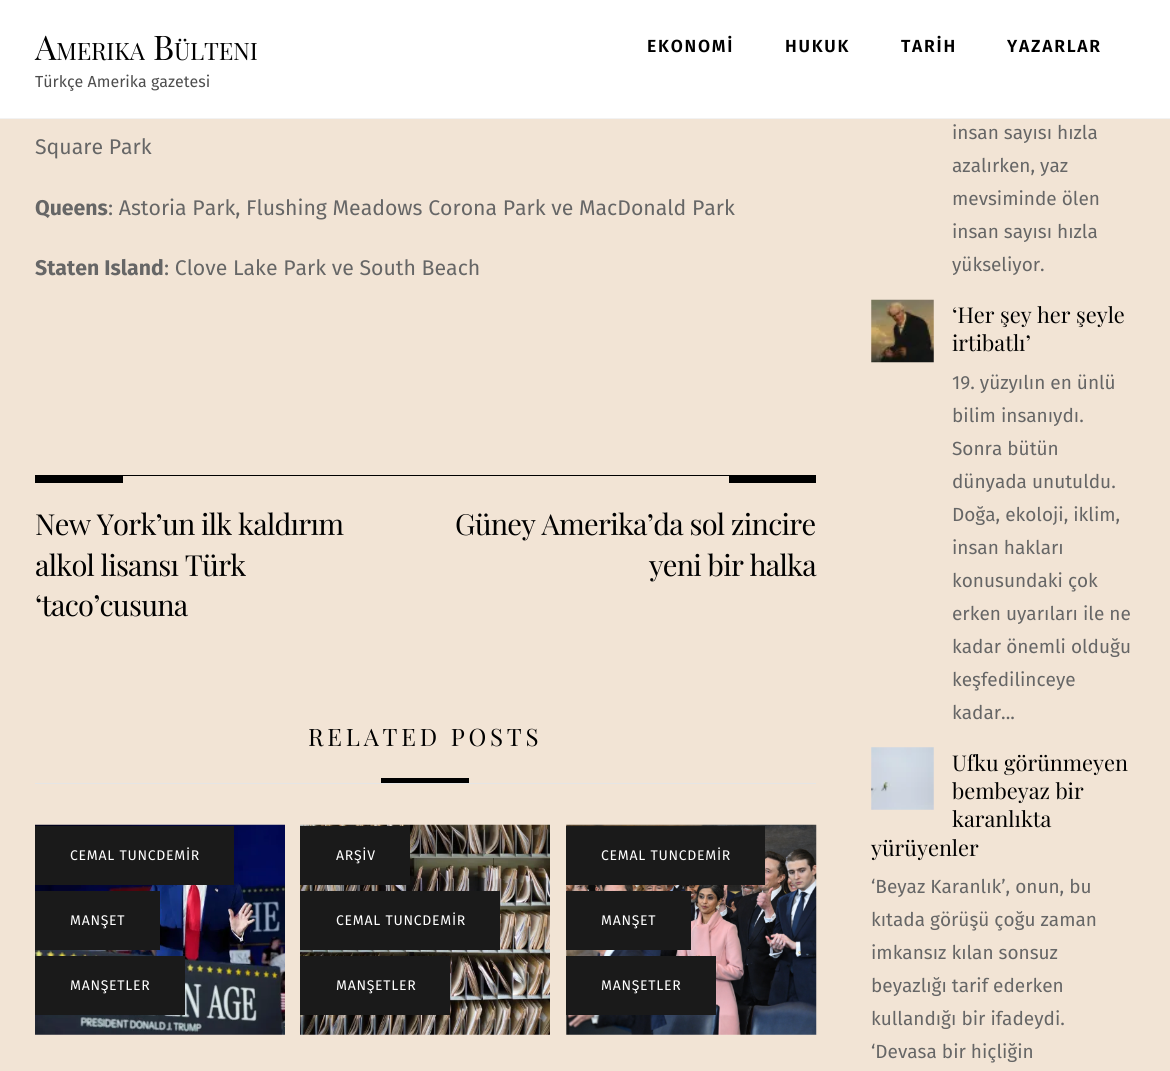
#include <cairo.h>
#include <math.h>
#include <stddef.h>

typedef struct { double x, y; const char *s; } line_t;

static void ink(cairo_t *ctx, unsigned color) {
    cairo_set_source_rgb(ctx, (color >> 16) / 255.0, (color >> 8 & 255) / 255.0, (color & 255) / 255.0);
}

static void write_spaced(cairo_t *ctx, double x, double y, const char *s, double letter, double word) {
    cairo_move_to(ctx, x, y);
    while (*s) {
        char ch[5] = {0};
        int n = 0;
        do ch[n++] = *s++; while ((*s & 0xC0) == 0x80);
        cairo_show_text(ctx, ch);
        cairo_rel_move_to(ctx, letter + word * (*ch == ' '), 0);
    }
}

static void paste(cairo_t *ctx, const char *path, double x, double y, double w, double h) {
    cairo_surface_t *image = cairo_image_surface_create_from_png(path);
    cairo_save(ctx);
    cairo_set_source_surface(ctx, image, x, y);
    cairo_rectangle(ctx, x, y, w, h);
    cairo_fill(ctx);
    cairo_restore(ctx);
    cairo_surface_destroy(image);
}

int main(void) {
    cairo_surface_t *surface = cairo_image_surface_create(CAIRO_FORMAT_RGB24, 1170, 1071);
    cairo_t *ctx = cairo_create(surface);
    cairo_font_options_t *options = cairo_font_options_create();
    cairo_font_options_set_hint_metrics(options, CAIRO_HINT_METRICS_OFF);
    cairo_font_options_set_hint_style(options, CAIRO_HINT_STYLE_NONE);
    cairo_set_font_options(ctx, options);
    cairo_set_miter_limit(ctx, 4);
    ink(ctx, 0xF2E4D5);
    cairo_paint(ctx);
    ink(ctx, 0xFFFFFF);
    cairo_rectangle(ctx, 0, 0, 1170, 118);
    cairo_fill(ctx);
    ink(ctx, 0xF2F2F2);
    cairo_rectangle(ctx, 0, 118, 1170, 1);
    cairo_fill(ctx);
    cairo_select_font_face(ctx, "Playfair Display", CAIRO_FONT_SLANT_NORMAL, CAIRO_FONT_WEIGHT_NORMAL);
    cairo_set_font_size(ctx, 34);
    ink(ctx, 0x000000);
    write_spaced(ctx, 35, 60, "A", -0.25, 0);
    cairo_set_font_size(ctx, 24);
    write_spaced(ctx, 56, 60, "MERIKA", -0.25, 0);
    cairo_set_font_size(ctx, 34);
    write_spaced(ctx, 153, 60, "B", -0.25, 0);
    cairo_set_font_size(ctx, 24);
    write_spaced(ctx, 174, 60, "ÜLTENI", -0.25, 0);
    cairo_select_font_face(ctx, "Fira Sans", CAIRO_FONT_SLANT_NORMAL, CAIRO_FONT_WEIGHT_NORMAL);
    cairo_set_font_size(ctx, 16);
    ink(ctx, 0x4D4D4D);
    cairo_move_to(ctx, 35, 87);
    cairo_show_text(ctx, "Türkçe Amerika gazetesi");
    cairo_select_font_face(ctx, "Fira Sans SemiBold", CAIRO_FONT_SLANT_NORMAL, CAIRO_FONT_WEIGHT_NORMAL);
    cairo_set_font_size(ctx, 17.5);
    ink(ctx, 0x000000);
    {
        static const line_t items[] = {
            {647, 52, "EKONOMİ"},
            {785, 52, "HUKUK"},
            {901, 52, "TARİH"},
            {1007, 52, "YAZARLAR"},
        };
        for (size_t i = 0; i < sizeof items / sizeof *items; i++) {
            write_spaced(ctx, items[i].x, items[i].y, items[i].s, 1.75, 0);
        }
    }
    cairo_select_font_face(ctx, "Fira Sans", CAIRO_FONT_SLANT_NORMAL, CAIRO_FONT_WEIGHT_NORMAL);
    cairo_set_font_size(ctx, 21.25);
    ink(ctx, 0x666666);
    cairo_move_to(ctx, 35, 154);
    cairo_show_text(ctx, "Square Park");
    cairo_select_font_face(ctx, "Fira Sans", CAIRO_FONT_SLANT_NORMAL, CAIRO_FONT_WEIGHT_BOLD);
    cairo_move_to(ctx, 35, 215);
    cairo_show_text(ctx, "Queens");
    cairo_select_font_face(ctx, "Fira Sans", CAIRO_FONT_SLANT_NORMAL, CAIRO_FONT_WEIGHT_NORMAL);
    cairo_move_to(ctx, 108, 215);
    cairo_show_text(ctx, ": Astoria Park, Flushing Meadows Corona Park ve MacDonald Park");
    cairo_select_font_face(ctx, "Fira Sans", CAIRO_FONT_SLANT_NORMAL, CAIRO_FONT_WEIGHT_BOLD);
    cairo_move_to(ctx, 35, 275);
    cairo_show_text(ctx, "Staten Island");
    cairo_select_font_face(ctx, "Fira Sans", CAIRO_FONT_SLANT_NORMAL, CAIRO_FONT_WEIGHT_NORMAL);
    cairo_move_to(ctx, 164, 275);
    cairo_show_text(ctx, ": Clove Lake Park ve South Beach");
    ink(ctx, 0x000000);
    cairo_rectangle(ctx, 35, 475, 781, 1);
    cairo_fill(ctx);
    cairo_rectangle(ctx, 35, 476, 88, 7);
    cairo_fill(ctx);
    cairo_select_font_face(ctx, "Playfair Display", CAIRO_FONT_SLANT_NORMAL, CAIRO_FONT_WEIGHT_NORMAL);
    cairo_set_font_size(ctx, 29);
    {
        static const line_t items[] = {
            {35, 535, "New York’un ilk kaldırım"},
            {35, 576, "alkol lisansı Türk"},
            {35, 616, "‘taco’cusuna"},
        };
        for (size_t i = 0; i < sizeof items / sizeof *items; i++) {
            write_spaced(ctx, items[i].x, items[i].y, items[i].s, -0.75, 0);
        }
    }
    cairo_rectangle(ctx, 729, 476, 87, 7);
    cairo_fill(ctx);
    write_spaced(ctx, 455, 535, "Güney Amerika’da sol zincire", -0.75, 0);
    write_spaced(ctx, 649, 576, "yeni bir halka", -0.75, 0);
    cairo_set_font_size(ctx, 24);
    write_spaced(ctx, 308, 746, "RELATED POSTS", 3.8, 0);
    cairo_rectangle(ctx, 381, 778, 88, 5);
    cairo_fill(ctx);
    ink(ctx, 0xE5E5E5);
    cairo_rectangle(ctx, 35, 783, 781, 1);
    cairo_fill(ctx);
    paste(ctx, "media/1.png", 35, 824, 250, 211);
    ink(ctx, 0x1A1A1A);
    cairo_rectangle(ctx, 35, 826, 199, 59);
    cairo_fill(ctx);
    cairo_select_font_face(ctx, "Fira Sans", CAIRO_FONT_SLANT_NORMAL, CAIRO_FONT_WEIGHT_NORMAL);
    cairo_set_font_size(ctx, 14);
    ink(ctx, 0xFFFFFF);
    write_spaced(ctx, 70, 860, "CEMAL TUNCDEMİR", 0.75, 0);
    ink(ctx, 0x1A1A1A);
    cairo_rectangle(ctx, 35, 891, 125, 59);
    cairo_fill(ctx);
    ink(ctx, 0xFFFFFF);
    write_spaced(ctx, 70, 925, "MANŞET", 0.75, 0);
    ink(ctx, 0x1A1A1A);
    cairo_rectangle(ctx, 35, 956, 150, 59);
    cairo_fill(ctx);
    ink(ctx, 0xFFFFFF);
    write_spaced(ctx, 70, 990, "MANŞETLER", 0.75, 0);
    paste(ctx, "media/2.png", 300, 824, 250, 211);
    ink(ctx, 0x1A1A1A);
    cairo_rectangle(ctx, 300, 826, 110, 59);
    cairo_fill(ctx);
    ink(ctx, 0xFFFFFF);
    write_spaced(ctx, 336, 860, "ARŞİV", 0.75, 0);
    ink(ctx, 0x1A1A1A);
    cairo_rectangle(ctx, 300, 891, 200, 59);
    cairo_fill(ctx);
    ink(ctx, 0xFFFFFF);
    write_spaced(ctx, 336, 925, "CEMAL TUNCDEMİR", 0.75, 0);
    ink(ctx, 0x645447);
    write_spaced(ctx, 500, 925, ",", 0.75, 0);
    ink(ctx, 0x1A1A1A);
    cairo_rectangle(ctx, 300, 956, 150, 59);
    cairo_fill(ctx);
    ink(ctx, 0xFFFFFF);
    write_spaced(ctx, 336, 990, "MANŞETLER", 0.75, 0);
    paste(ctx, "media/3.png", 566, 824, 251, 211);
    ink(ctx, 0x1A1A1A);
    cairo_rectangle(ctx, 566, 826, 199, 59);
    cairo_fill(ctx);
    ink(ctx, 0xFFFFFF);
    write_spaced(ctx, 601, 860, "CEMAL TUNCDEMİR", 0.75, 0);
    ink(ctx, 0x1A1A1A);
    cairo_rectangle(ctx, 566, 891, 125, 59);
    cairo_fill(ctx);
    ink(ctx, 0xFFFFFF);
    write_spaced(ctx, 601, 925, "MANŞET", 0.75, 0);
    ink(ctx, 0x1A1A1A);
    cairo_rectangle(ctx, 566, 956, 150, 59);
    cairo_fill(ctx);
    ink(ctx, 0xFFFFFF);
    write_spaced(ctx, 601, 990, "MANŞETLER", 0.75, 0);
    cairo_set_font_size(ctx, 19);
    ink(ctx, 0x666666);
    {
        static const line_t items[] = {
            {952, 139, "insan sayısı hızla"},
            {952, 172, "azalırken, yaz"},
            {952, 205, "mevsiminde ölen"},
            {952, 238, "insan sayısı hızla"},
            {952, 271, "yükseliyor."},
        };
        for (size_t i = 0; i < sizeof items / sizeof *items; i++) {
            cairo_move_to(ctx, items[i].x, items[i].y);
            cairo_show_text(ctx, items[i].s);
        }
    }
    paste(ctx, "media/4.png", 871, 299, 63, 64);
    cairo_select_font_face(ctx, "Playfair Display", CAIRO_FONT_SLANT_NORMAL, CAIRO_FONT_WEIGHT_NORMAL);
    cairo_set_font_size(ctx, 21.75);
    ink(ctx, 0x000000);
    cairo_move_to(ctx, 952, 323);
    cairo_show_text(ctx, "‘Her şey her şeyle");
    cairo_move_to(ctx, 952, 351);
    cairo_show_text(ctx, "irtibatlı’");
    cairo_select_font_face(ctx, "Fira Sans", CAIRO_FONT_SLANT_NORMAL, CAIRO_FONT_WEIGHT_NORMAL);
    cairo_set_font_size(ctx, 19);
    ink(ctx, 0x666666);
    {
        static const line_t items[] = {
            {952, 389, "19. yüzyılın en ünlü"},
            {952, 422, "bilim insanıydı."},
            {952, 455, "Sonra bütün"},
            {952, 488, "dünyada unutuldu."},
            {952, 521, "Doğa, ekoloji, iklim,"},
            {952, 554, "insan hakları"},
            {952, 587, "konusundaki çok"},
            {952, 620, "erken uyarıları ile ne"},
            {952, 653, "kadar önemli olduğu"},
            {952, 686, "keşfedilinceye"},
            {952, 719, "kadar..."},
        };
        for (size_t i = 0; i < sizeof items / sizeof *items; i++) {
            cairo_move_to(ctx, items[i].x, items[i].y);
            cairo_show_text(ctx, items[i].s);
        }
    }
    paste(ctx, "media/5.png", 871, 747, 63, 63);
    cairo_select_font_face(ctx, "Playfair Display", CAIRO_FONT_SLANT_NORMAL, CAIRO_FONT_WEIGHT_NORMAL);
    cairo_set_font_size(ctx, 21.75);
    ink(ctx, 0x000000);
    {
        static const line_t items[] = {
            {952, 771, "Ufku görünmeyen"},
            {952, 799, "bembeyaz bir"},
            {952, 827, "karanlıkta"},
            {871, 856, "yürüyenler"},
        };
        for (size_t i = 0; i < sizeof items / sizeof *items; i++) {
            cairo_move_to(ctx, items[i].x, items[i].y);
            cairo_show_text(ctx, items[i].s);
        }
    }
    cairo_select_font_face(ctx, "Fira Sans", CAIRO_FONT_SLANT_NORMAL, CAIRO_FONT_WEIGHT_NORMAL);
    cairo_set_font_size(ctx, 19);
    ink(ctx, 0x666666);
    {
        static const line_t items[] = {
            {871, 893, "‘Beyaz Karanlık’, onun, bu"},
            {871, 926, "kıtada görüşü çoğu zaman"},
            {871, 959, "imkansız kılan sonsuz"},
            {871, 992, "beyazlığı tarif ederken"},
            {871, 1025, "kullandığı bir ifadeydi."},
            {871, 1058, "‘Devasa bir hiçliğin"},
        };
        for (size_t i = 0; i < sizeof items / sizeof *items; i++) {
            cairo_move_to(ctx, items[i].x, items[i].y);
            cairo_show_text(ctx, items[i].s);
        }
    }
    cairo_surface_write_to_png(surface, "image.png");
    cairo_font_options_destroy(options);
    cairo_destroy(ctx);
    cairo_surface_destroy(surface);
    return 0;
}
